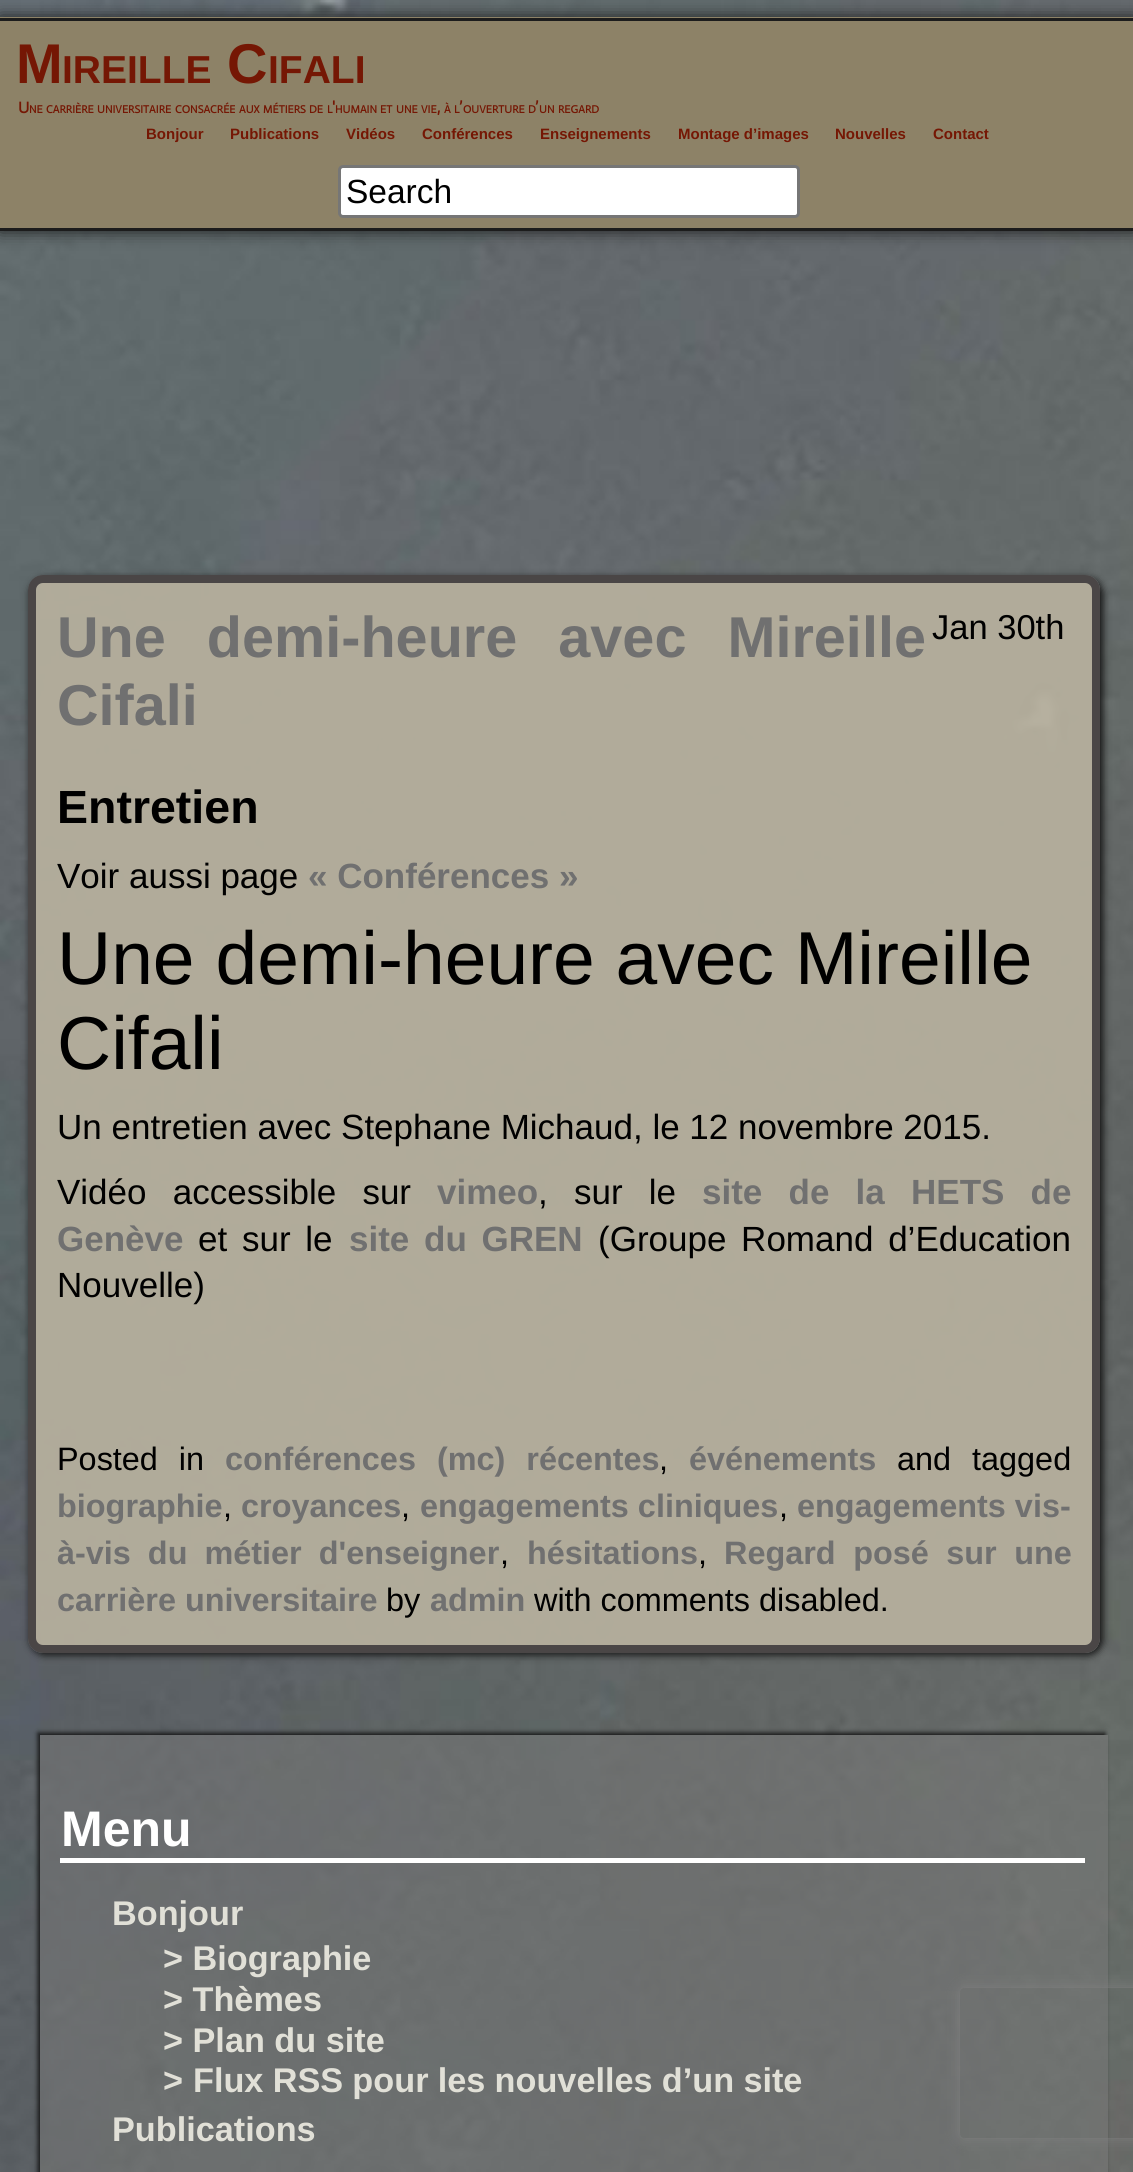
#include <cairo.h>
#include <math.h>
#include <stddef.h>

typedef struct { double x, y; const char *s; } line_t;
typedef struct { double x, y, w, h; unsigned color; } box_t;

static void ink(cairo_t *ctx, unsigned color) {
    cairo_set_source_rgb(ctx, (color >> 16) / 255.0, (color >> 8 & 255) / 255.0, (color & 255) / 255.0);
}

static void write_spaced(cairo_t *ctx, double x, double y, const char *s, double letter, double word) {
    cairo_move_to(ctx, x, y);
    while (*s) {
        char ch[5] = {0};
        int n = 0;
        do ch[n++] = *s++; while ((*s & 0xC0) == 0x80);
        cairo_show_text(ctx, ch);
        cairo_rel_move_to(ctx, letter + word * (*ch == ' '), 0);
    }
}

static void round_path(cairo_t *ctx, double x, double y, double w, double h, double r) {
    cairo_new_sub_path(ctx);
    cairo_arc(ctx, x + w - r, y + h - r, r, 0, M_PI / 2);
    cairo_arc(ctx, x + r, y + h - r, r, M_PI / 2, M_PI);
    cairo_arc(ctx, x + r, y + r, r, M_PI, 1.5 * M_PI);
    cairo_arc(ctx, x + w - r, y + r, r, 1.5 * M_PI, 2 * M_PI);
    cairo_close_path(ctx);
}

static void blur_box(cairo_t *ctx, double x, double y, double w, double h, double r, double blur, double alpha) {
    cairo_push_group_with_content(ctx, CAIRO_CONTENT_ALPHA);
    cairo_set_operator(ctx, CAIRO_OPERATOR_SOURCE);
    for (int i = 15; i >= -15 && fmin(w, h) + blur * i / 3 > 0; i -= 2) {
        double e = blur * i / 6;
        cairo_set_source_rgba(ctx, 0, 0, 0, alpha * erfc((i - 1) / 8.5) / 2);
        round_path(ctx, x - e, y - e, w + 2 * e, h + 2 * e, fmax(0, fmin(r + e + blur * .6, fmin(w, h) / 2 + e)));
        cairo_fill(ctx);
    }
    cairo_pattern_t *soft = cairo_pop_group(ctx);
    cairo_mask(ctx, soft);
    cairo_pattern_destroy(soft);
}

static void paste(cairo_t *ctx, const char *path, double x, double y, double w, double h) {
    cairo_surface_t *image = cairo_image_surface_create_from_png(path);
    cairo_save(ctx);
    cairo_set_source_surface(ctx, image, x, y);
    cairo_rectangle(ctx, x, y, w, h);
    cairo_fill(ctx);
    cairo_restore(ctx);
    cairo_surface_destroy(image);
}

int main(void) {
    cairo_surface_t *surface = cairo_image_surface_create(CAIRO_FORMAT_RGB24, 1133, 2172);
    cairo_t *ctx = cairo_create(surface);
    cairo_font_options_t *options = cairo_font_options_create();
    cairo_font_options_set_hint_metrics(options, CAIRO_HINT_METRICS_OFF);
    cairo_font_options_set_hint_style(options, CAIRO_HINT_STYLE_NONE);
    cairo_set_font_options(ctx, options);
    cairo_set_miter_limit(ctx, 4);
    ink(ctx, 0xFFFFFF);
    cairo_paint(ctx);
    paste(ctx, "media/1.png", 0, 0, 1133, 2172);
    ink(ctx, 0x111111);
    blur_box(ctx, 0, 18, 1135, 212, 0, 8.5, 1);
    {
        static const box_t items[] = {
            {0, 17, 1133, 211, 0x8D8267},
            {0, 18, 1133, 3, 0x1C1C1C},
            {0, 228, 1133, 3, 0x1C1C1C},
        };
        for (size_t i = 0; i < sizeof items / sizeof *items; i++) {
            ink(ctx, items[i].color);
            cairo_rectangle(ctx, items[i].x, items[i].y, items[i].w, items[i].h);
            cairo_fill(ctx);
        }
    }
    cairo_select_font_face(ctx, "Liberation Sans", CAIRO_FONT_SLANT_NORMAL, CAIRO_FONT_WEIGHT_BOLD);
    cairo_set_font_size(ctx, 56);
    ink(ctx, 0x751704);
    cairo_move_to(ctx, 16, 83);
    cairo_show_text(ctx, "M");
    cairo_set_font_size(ctx, 39);
    cairo_move_to(ctx, 62, 83);
    cairo_show_text(ctx, "IREILLE");
    cairo_set_font_size(ctx, 56);
    cairo_move_to(ctx, 227, 83);
    cairo_show_text(ctx, "C");
    cairo_set_font_size(ctx, 39);
    cairo_move_to(ctx, 268, 83);
    cairo_show_text(ctx, "IFALI");
    cairo_select_font_face(ctx, "Actor", CAIRO_FONT_SLANT_NORMAL, CAIRO_FONT_WEIGHT_BOLD);
    cairo_set_font_size(ctx, 16);
    cairo_move_to(ctx, 18, 113);
    cairo_show_text(ctx, "U");
    cairo_set_font_size(ctx, 11);
    {
        static const line_t items[] = {
            {29, 113, "NE"},
            {46, 113, "CARRIÈRE"},
            {97, 113, "UNIVERSITAIRE"},
            {175, 113, "CONSACRÉE"},
            {239, 113, "AUX"},
            {263, 113, "MÉTIERS"},
            {309, 113, "DE"},
            {327, 113, "L"},
        };
        for (size_t i = 0; i < sizeof items / sizeof *items; i++) {
            cairo_move_to(ctx, items[i].x, items[i].y);
            cairo_show_text(ctx, items[i].s);
        }
    }
    cairo_set_font_size(ctx, 16);
    cairo_move_to(ctx, 332, 113);
    cairo_show_text(ctx, "'");
    cairo_set_font_size(ctx, 11);
    {
        static const line_t items[] = {
            {335, 113, "HUMAIN"},
            {380, 113, "ET"},
            {396, 113, "UNE"},
            {421, 113, "VIE"},
        };
        for (size_t i = 0; i < sizeof items / sizeof *items; i++) {
            cairo_move_to(ctx, items[i].x, items[i].y);
            cairo_show_text(ctx, items[i].s);
        }
    }
    cairo_set_font_size(ctx, 16);
    cairo_move_to(ctx, 437, 113);
    cairo_show_text(ctx, ",");
    cairo_set_font_size(ctx, 11);
    cairo_move_to(ctx, 444, 113);
    cairo_show_text(ctx, "À");
    cairo_move_to(ctx, 454, 113);
    cairo_show_text(ctx, "L");
    cairo_set_font_size(ctx, 16);
    cairo_move_to(ctx, 459, 113);
    cairo_show_text(ctx, "’");
    cairo_set_font_size(ctx, 11);
    cairo_move_to(ctx, 463, 113);
    cairo_show_text(ctx, "OUVERTURE");
    cairo_move_to(ctx, 528, 113);
    cairo_show_text(ctx, "D");
    cairo_set_font_size(ctx, 16);
    cairo_move_to(ctx, 535, 113);
    cairo_show_text(ctx, "’");
    cairo_set_font_size(ctx, 11);
    cairo_move_to(ctx, 539, 113);
    cairo_show_text(ctx, "UN");
    cairo_move_to(ctx, 558, 113);
    cairo_show_text(ctx, "REGARD");
    cairo_select_font_face(ctx, "Liberation Sans", CAIRO_FONT_SLANT_NORMAL, CAIRO_FONT_WEIGHT_BOLD);
    cairo_set_font_size(ctx, 15);
    {
        static const line_t items[] = {
            {146, 139, "Bonjour"},
            {230, 139, "Publications"},
            {346, 139, "Vidéos"},
            {422, 139, "Conférences"},
            {540, 139, "Enseignements"},
            {678, 139, "Montage d’images"},
            {835, 139, "Nouvelles"},
            {933, 139, "Contact"},
        };
        for (size_t i = 0; i < sizeof items / sizeof *items; i++) {
            cairo_move_to(ctx, items[i].x, items[i].y);
            cairo_show_text(ctx, items[i].s);
        }
    }
    ink(ctx, 0xFFFFFF);
    round_path(ctx, 339.5, 166.5, 459, 50, 3.5);
    cairo_fill_preserve(ctx);
    ink(ctx, 0x767676);
    cairo_set_line_width(ctx, 3);
    cairo_stroke(ctx);
    cairo_select_font_face(ctx, "Liberation Sans", CAIRO_FONT_SLANT_NORMAL, CAIRO_FONT_WEIGHT_NORMAL);
    cairo_set_font_size(ctx, 33.5);
    ink(ctx, 0x000000);
    cairo_move_to(ctx, 346, 203);
    cairo_show_text(ctx, "Search");
    cairo_save(ctx);
    cairo_set_fill_rule(ctx, CAIRO_FILL_RULE_EVEN_ODD);
    cairo_new_path(ctx);
    cairo_move_to(ctx, 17, 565);
    cairo_line_to(ctx, 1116, 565);
    cairo_line_to(ctx, 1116, 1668);
    cairo_line_to(ctx, 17, 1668);
    cairo_close_path(ctx);
    cairo_move_to(ctx, 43, 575);
    cairo_line_to(ctx, 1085, 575);
    cairo_curve_to(ctx, 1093.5, 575, 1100, 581.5, 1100, 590);
    cairo_line_to(ctx, 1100, 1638);
    cairo_curve_to(ctx, 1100, 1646.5, 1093.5, 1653, 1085, 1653);
    cairo_line_to(ctx, 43, 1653);
    cairo_curve_to(ctx, 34.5, 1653, 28, 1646.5, 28, 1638);
    cairo_line_to(ctx, 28, 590);
    cairo_curve_to(ctx, 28, 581.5, 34.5, 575, 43, 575);
    cairo_close_path(ctx);
    cairo_clip(ctx);
    ink(ctx, 0x111111);
    blur_box(ctx, 30, 578, 1073, 1077, 15, 4, 1);
    cairo_restore(ctx);
    cairo_set_source_rgba(ctx, 0.71, 0.686, 0.616, 0.95);
    round_path(ctx, 32, 579, 1064, 1070, 11);
    cairo_fill_preserve(ctx);
    ink(ctx, 0x4A4646);
    cairo_set_line_width(ctx, 8);
    cairo_stroke(ctx);
    cairo_select_font_face(ctx, "Liberation Sans", CAIRO_FONT_SLANT_NORMAL, CAIRO_FONT_WEIGHT_BOLD);
    cairo_set_font_size(ctx, 57.6);
    ink(ctx, 0x707070);
    write_spaced(ctx, 57, 657, "Une demi-heure avec Mireille", 0, 25);
    cairo_select_font_face(ctx, "Liberation Sans", CAIRO_FONT_SLANT_NORMAL, CAIRO_FONT_WEIGHT_NORMAL);
    cairo_set_font_size(ctx, 34.5);
    ink(ctx, 0x000000);
    cairo_move_to(ctx, 932, 639);
    cairo_show_text(ctx, "Jan 30th");
    cairo_select_font_face(ctx, "Liberation Sans", CAIRO_FONT_SLANT_NORMAL, CAIRO_FONT_WEIGHT_BOLD);
    cairo_set_font_size(ctx, 57.6);
    ink(ctx, 0x707070);
    cairo_move_to(ctx, 57, 725);
    cairo_show_text(ctx, "Cifali");
    cairo_set_font_size(ctx, 46.5);
    ink(ctx, 0x000000);
    cairo_move_to(ctx, 57, 823);
    cairo_show_text(ctx, "Entretien");
    cairo_select_font_face(ctx, "Liberation Sans", CAIRO_FONT_SLANT_NORMAL, CAIRO_FONT_WEIGHT_NORMAL);
    cairo_set_font_size(ctx, 35);
    cairo_move_to(ctx, 57, 888);
    cairo_show_text(ctx, "Voir aussi page");
    cairo_select_font_face(ctx, "Liberation Sans", CAIRO_FONT_SLANT_NORMAL, CAIRO_FONT_WEIGHT_BOLD);
    ink(ctx, 0x707070);
    cairo_move_to(ctx, 308, 888);
    cairo_show_text(ctx, "« Conférences »");
    cairo_select_font_face(ctx, "Liberation Sans", CAIRO_FONT_SLANT_NORMAL, CAIRO_FONT_WEIGHT_NORMAL);
    cairo_set_font_size(ctx, 75);
    ink(ctx, 0x000000);
    cairo_move_to(ctx, 57, 984);
    cairo_show_text(ctx, "Une demi-heure avec Mireille");
    cairo_move_to(ctx, 57, 1069);
    cairo_show_text(ctx, "Cifali");
    cairo_set_font_size(ctx, 35);
    cairo_move_to(ctx, 57, 1139);
    cairo_show_text(ctx, "Un entretien avec Stephane Michaud, le 12 novembre 2015.");
    write_spaced(ctx, 57, 1204, "Vidéo accessible sur", 0, 16.5);
    cairo_select_font_face(ctx, "Liberation Sans", CAIRO_FONT_SLANT_NORMAL, CAIRO_FONT_WEIGHT_BOLD);
    ink(ctx, 0x707070);
    cairo_move_to(ctx, 437, 1204);
    cairo_show_text(ctx, "vimeo");
    cairo_select_font_face(ctx, "Liberation Sans", CAIRO_FONT_SLANT_NORMAL, CAIRO_FONT_WEIGHT_NORMAL);
    ink(ctx, 0x000000);
    write_spaced(ctx, 538, 1204, ", sur le", 0, 16.5);
    cairo_select_font_face(ctx, "Liberation Sans", CAIRO_FONT_SLANT_NORMAL, CAIRO_FONT_WEIGHT_BOLD);
    ink(ctx, 0x707070);
    write_spaced(ctx, 702, 1204, "site de la HETS de", 0, 16.5);
    cairo_move_to(ctx, 57, 1251);
    cairo_show_text(ctx, "Genève");
    cairo_select_font_face(ctx, "Liberation Sans", CAIRO_FONT_SLANT_NORMAL, CAIRO_FONT_WEIGHT_NORMAL);
    ink(ctx, 0x000000);
    write_spaced(ctx, 198, 1251, "et sur le", 0, 5);
    cairo_select_font_face(ctx, "Liberation Sans", CAIRO_FONT_SLANT_NORMAL, CAIRO_FONT_WEIGHT_BOLD);
    ink(ctx, 0x707070);
    write_spaced(ctx, 349, 1251, "site du GREN", 0, 5);
    cairo_select_font_face(ctx, "Liberation Sans", CAIRO_FONT_SLANT_NORMAL, CAIRO_FONT_WEIGHT_NORMAL);
    ink(ctx, 0x000000);
    write_spaced(ctx, 598, 1251, "(Groupe Romand d’Education", 0, 5);
    cairo_move_to(ctx, 57, 1297);
    cairo_show_text(ctx, "Nouvelle)");
    cairo_set_font_size(ctx, 32.4);
    write_spaced(ctx, 57, 1470, "Posted in", 0, 12);
    cairo_select_font_face(ctx, "Liberation Sans", CAIRO_FONT_SLANT_NORMAL, CAIRO_FONT_WEIGHT_BOLD);
    ink(ctx, 0x707070);
    write_spaced(ctx, 225, 1470, "conférences (mc) récentes", 0, 12);
    cairo_select_font_face(ctx, "Liberation Sans", CAIRO_FONT_SLANT_NORMAL, CAIRO_FONT_WEIGHT_NORMAL);
    ink(ctx, 0x000000);
    cairo_move_to(ctx, 659, 1470);
    cairo_show_text(ctx, ",");
    cairo_select_font_face(ctx, "Liberation Sans", CAIRO_FONT_SLANT_NORMAL, CAIRO_FONT_WEIGHT_BOLD);
    ink(ctx, 0x707070);
    cairo_move_to(ctx, 689, 1470);
    cairo_show_text(ctx, "événements");
    cairo_select_font_face(ctx, "Liberation Sans", CAIRO_FONT_SLANT_NORMAL, CAIRO_FONT_WEIGHT_NORMAL);
    ink(ctx, 0x000000);
    write_spaced(ctx, 897, 1470, "and tagged", 0, 12);
    cairo_select_font_face(ctx, "Liberation Sans", CAIRO_FONT_SLANT_NORMAL, CAIRO_FONT_WEIGHT_BOLD);
    ink(ctx, 0x707070);
    cairo_move_to(ctx, 57, 1517);
    cairo_show_text(ctx, "biographie");
    cairo_select_font_face(ctx, "Liberation Sans", CAIRO_FONT_SLANT_NORMAL, CAIRO_FONT_WEIGHT_NORMAL);
    ink(ctx, 0x000000);
    cairo_move_to(ctx, 223, 1517);
    cairo_show_text(ctx, ",");
    cairo_select_font_face(ctx, "Liberation Sans", CAIRO_FONT_SLANT_NORMAL, CAIRO_FONT_WEIGHT_BOLD);
    ink(ctx, 0x707070);
    cairo_move_to(ctx, 241, 1517);
    cairo_show_text(ctx, "croyances");
    cairo_select_font_face(ctx, "Liberation Sans", CAIRO_FONT_SLANT_NORMAL, CAIRO_FONT_WEIGHT_NORMAL);
    ink(ctx, 0x000000);
    cairo_move_to(ctx, 401, 1517);
    cairo_show_text(ctx, ",");
    cairo_select_font_face(ctx, "Liberation Sans", CAIRO_FONT_SLANT_NORMAL, CAIRO_FONT_WEIGHT_BOLD);
    ink(ctx, 0x707070);
    cairo_move_to(ctx, 420, 1517);
    cairo_show_text(ctx, "engagements cliniques");
    cairo_select_font_face(ctx, "Liberation Sans", CAIRO_FONT_SLANT_NORMAL, CAIRO_FONT_WEIGHT_NORMAL);
    ink(ctx, 0x000000);
    cairo_move_to(ctx, 779, 1517);
    cairo_show_text(ctx, ",");
    cairo_select_font_face(ctx, "Liberation Sans", CAIRO_FONT_SLANT_NORMAL, CAIRO_FONT_WEIGHT_BOLD);
    ink(ctx, 0x707070);
    cairo_move_to(ctx, 797, 1517);
    cairo_show_text(ctx, "engagements vis-");
    write_spaced(ctx, 57, 1564, "à-vis du métier d'enseigner", 0, 8);
    cairo_select_font_face(ctx, "Liberation Sans", CAIRO_FONT_SLANT_NORMAL, CAIRO_FONT_WEIGHT_NORMAL);
    ink(ctx, 0x000000);
    cairo_move_to(ctx, 500, 1564);
    cairo_show_text(ctx, ",");
    cairo_select_font_face(ctx, "Liberation Sans", CAIRO_FONT_SLANT_NORMAL, CAIRO_FONT_WEIGHT_BOLD);
    ink(ctx, 0x707070);
    cairo_move_to(ctx, 527, 1564);
    cairo_show_text(ctx, "hésitations");
    cairo_select_font_face(ctx, "Liberation Sans", CAIRO_FONT_SLANT_NORMAL, CAIRO_FONT_WEIGHT_NORMAL);
    ink(ctx, 0x000000);
    cairo_move_to(ctx, 698, 1564);
    cairo_show_text(ctx, ",");
    cairo_select_font_face(ctx, "Liberation Sans", CAIRO_FONT_SLANT_NORMAL, CAIRO_FONT_WEIGHT_BOLD);
    ink(ctx, 0x707070);
    write_spaced(ctx, 724, 1564, "Regard posé sur une", 0, 8.5);
    cairo_move_to(ctx, 57, 1611);
    cairo_show_text(ctx, "carrière universitaire");
    cairo_select_font_face(ctx, "Liberation Sans", CAIRO_FONT_SLANT_NORMAL, CAIRO_FONT_WEIGHT_NORMAL);
    ink(ctx, 0x000000);
    cairo_move_to(ctx, 386, 1611);
    cairo_show_text(ctx, "by");
    cairo_select_font_face(ctx, "Liberation Sans", CAIRO_FONT_SLANT_NORMAL, CAIRO_FONT_WEIGHT_BOLD);
    ink(ctx, 0x707070);
    cairo_move_to(ctx, 430, 1611);
    cairo_show_text(ctx, "admin");
    cairo_select_font_face(ctx, "Liberation Sans", CAIRO_FONT_SLANT_NORMAL, CAIRO_FONT_WEIGHT_NORMAL);
    ink(ctx, 0x000000);
    cairo_move_to(ctx, 534, 1611);
    cairo_show_text(ctx, "with comments disabled.");
    cairo_save(ctx);
    cairo_set_fill_rule(ctx, CAIRO_FILL_RULE_EVEN_ODD);
    cairo_new_path(ctx);
    cairo_move_to(ctx, 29, 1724);
    cairo_line_to(ctx, 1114, 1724);
    cairo_line_to(ctx, 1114, 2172);
    cairo_line_to(ctx, 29, 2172);
    cairo_close_path(ctx);
    cairo_move_to(ctx, 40, 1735);
    cairo_line_to(ctx, 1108, 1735);
    cairo_line_to(ctx, 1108, 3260);
    cairo_line_to(ctx, 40, 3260);
    cairo_close_path(ctx);
    cairo_clip(ctx);
    ink(ctx, 0x111111);
    blur_box(ctx, 38, 1733, 1067, 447, 0, 2.5, 1);
    cairo_restore(ctx);
    cairo_set_source_rgba(ctx, 0.478, 0.478, 0.478, 0.5);
    cairo_rectangle(ctx, 40, 1735, 1068, 437);
    cairo_fill(ctx);
    ink(ctx, 0xFFFFFF);
    cairo_rectangle(ctx, 60, 1858, 1025, 5);
    cairo_fill(ctx);
    cairo_select_font_face(ctx, "Liberation Sans", CAIRO_FONT_SLANT_NORMAL, CAIRO_FONT_WEIGHT_BOLD);
    cairo_set_font_size(ctx, 50);
    cairo_move_to(ctx, 61, 1846);
    cairo_show_text(ctx, "Menu");
    cairo_set_font_size(ctx, 34.25);
    ink(ctx, 0xE1E0D7);
    {
        static const line_t items[] = {
            {112, 1925, "Bonjour"},
            {163, 1970, "> Biographie"},
            {163, 2011, "> Thèmes"},
            {163, 2052, "> Plan du site"},
            {163, 2092, ">"},
        };
        for (size_t i = 0; i < sizeof items / sizeof *items; i++) {
            cairo_move_to(ctx, items[i].x, items[i].y);
            cairo_show_text(ctx, items[i].s);
        }
    }
    write_spaced(ctx, 193, 2092, "Flux RSS pour les nouvelles d’un site", 0, -0.25);
    cairo_move_to(ctx, 112, 2141);
    cairo_show_text(ctx, "Publications");
    cairo_save(ctx);
    cairo_set_fill_rule(ctx, CAIRO_FILL_RULE_EVEN_ODD);
    cairo_new_path(ctx);
    cairo_move_to(ctx, 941, 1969);
    cairo_line_to(ctx, 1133, 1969);
    cairo_line_to(ctx, 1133, 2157);
    cairo_line_to(ctx, 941, 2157);
    cairo_close_path(ctx);
    cairo_move_to(ctx, 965, 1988);
    cairo_line_to(ctx, 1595, 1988);
    cairo_curve_to(ctx, 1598, 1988, 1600, 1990, 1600, 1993);
    cairo_line_to(ctx, 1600, 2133);
    cairo_curve_to(ctx, 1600, 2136, 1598, 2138, 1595, 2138);
    cairo_line_to(ctx, 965, 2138);
    cairo_curve_to(ctx, 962, 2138, 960, 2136, 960, 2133);
    cairo_line_to(ctx, 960, 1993);
    cairo_curve_to(ctx, 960, 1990, 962, 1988, 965, 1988);
    cairo_close_path(ctx);
    cairo_clip(ctx);
    ink(ctx, 0x808080);
    blur_box(ctx, 960, 1988, 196, 150, 5, 6, 1);
    cairo_restore(ctx);
    cairo_surface_write_to_png(surface, "image.png");
    cairo_font_options_destroy(options);
    cairo_destroy(ctx);
    cairo_surface_destroy(surface);
    return 0;
}
